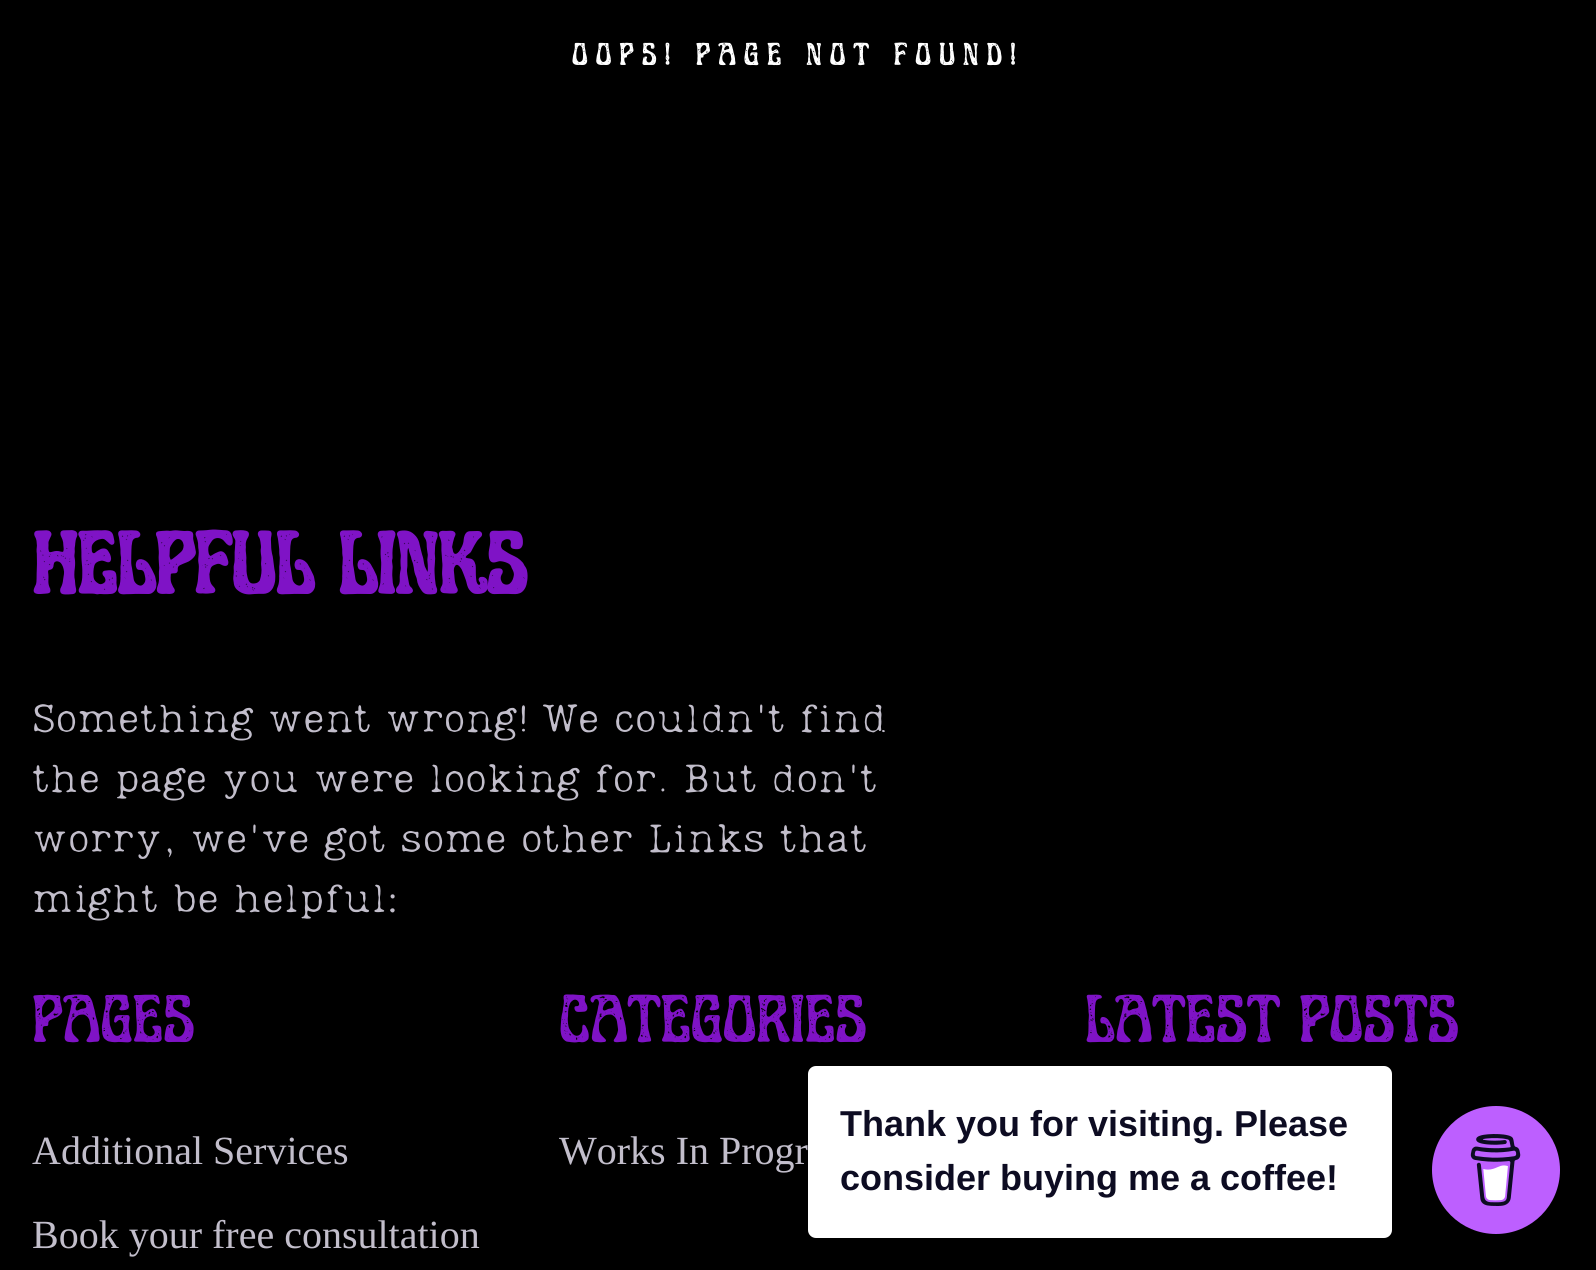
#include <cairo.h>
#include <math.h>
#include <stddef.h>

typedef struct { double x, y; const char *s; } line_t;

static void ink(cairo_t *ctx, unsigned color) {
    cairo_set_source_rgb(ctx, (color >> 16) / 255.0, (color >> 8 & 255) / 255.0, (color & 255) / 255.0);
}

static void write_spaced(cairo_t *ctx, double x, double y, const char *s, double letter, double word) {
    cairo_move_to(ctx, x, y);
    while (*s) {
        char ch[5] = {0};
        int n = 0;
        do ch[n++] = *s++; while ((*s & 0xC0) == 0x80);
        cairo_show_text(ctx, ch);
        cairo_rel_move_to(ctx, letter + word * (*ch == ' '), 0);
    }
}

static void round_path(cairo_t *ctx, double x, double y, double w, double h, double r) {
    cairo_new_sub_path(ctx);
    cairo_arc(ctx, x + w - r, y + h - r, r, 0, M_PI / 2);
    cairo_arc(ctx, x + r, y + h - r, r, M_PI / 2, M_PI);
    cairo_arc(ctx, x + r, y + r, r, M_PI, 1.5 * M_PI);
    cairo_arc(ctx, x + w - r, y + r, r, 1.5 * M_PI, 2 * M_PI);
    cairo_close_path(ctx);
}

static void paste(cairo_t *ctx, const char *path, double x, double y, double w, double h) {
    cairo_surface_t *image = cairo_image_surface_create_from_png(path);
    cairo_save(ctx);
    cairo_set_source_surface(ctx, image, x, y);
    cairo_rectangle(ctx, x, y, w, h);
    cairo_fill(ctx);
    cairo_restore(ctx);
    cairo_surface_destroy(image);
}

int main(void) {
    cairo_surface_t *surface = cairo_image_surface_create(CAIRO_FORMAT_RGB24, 1596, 1270);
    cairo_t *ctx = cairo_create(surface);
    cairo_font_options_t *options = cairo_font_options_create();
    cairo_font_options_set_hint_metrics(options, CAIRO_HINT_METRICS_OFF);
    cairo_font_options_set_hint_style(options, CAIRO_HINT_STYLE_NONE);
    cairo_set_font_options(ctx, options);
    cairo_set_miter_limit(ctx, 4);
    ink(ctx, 0x000000);
    cairo_paint(ctx);
    cairo_select_font_face(ctx, "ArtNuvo", CAIRO_FONT_SLANT_NORMAL, CAIRO_FONT_WEIGHT_NORMAL);
    cairo_set_font_size(ctx, 32);
    ink(ctx, 0xFFFFFF);
    write_spaced(ctx, 572, 65, "OOPS! PAGE NOT FOUND!", 8, 0);
    cairo_select_font_face(ctx, "ArtNuvo", CAIRO_FONT_SLANT_NORMAL, CAIRO_FONT_WEIGHT_BOLD);
    cairo_set_font_size(ctx, 88);
    ink(ctx, 0x7F13C6);
    cairo_move_to(ctx, 32, 594);
    cairo_show_text(ctx, "HELPFUL LINKS");
    cairo_select_font_face(ctx, "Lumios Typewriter", CAIRO_FONT_SLANT_NORMAL, CAIRO_FONT_WEIGHT_BOLD);
    cairo_set_font_size(ctx, 40);
    ink(ctx, 0xC2BECB);
    {
        static const line_t items[] = {
            {32, 732, "Something went wrong! We couldn't find"},
            {32, 792, "the page you were looking for. But don't"},
            {32, 852, "worry, we've got some other Links that"},
            {32, 912, "might be helpful:"},
        };
        for (size_t i = 0; i < sizeof items / sizeof *items; i++) {
            cairo_move_to(ctx, items[i].x, items[i].y);
            cairo_show_text(ctx, items[i].s);
        }
    }
    cairo_select_font_face(ctx, "ArtNuvo", CAIRO_FONT_SLANT_NORMAL, CAIRO_FONT_WEIGHT_NORMAL);
    cairo_set_font_size(ctx, 68);
    ink(ctx, 0x7F13C6);
    cairo_move_to(ctx, 32, 1042);
    cairo_show_text(ctx, "PAGES");
    cairo_select_font_face(ctx, "Liberation Serif", CAIRO_FONT_SLANT_NORMAL, CAIRO_FONT_WEIGHT_NORMAL);
    cairo_set_font_size(ctx, 40);
    ink(ctx, 0xC2BECB);
    cairo_move_to(ctx, 32, 1164);
    cairo_show_text(ctx, "Additional Services");
    cairo_move_to(ctx, 32, 1248);
    cairo_show_text(ctx, "Book your free consultation");
    cairo_select_font_face(ctx, "ArtNuvo", CAIRO_FONT_SLANT_NORMAL, CAIRO_FONT_WEIGHT_NORMAL);
    cairo_set_font_size(ctx, 68);
    ink(ctx, 0x7F13C6);
    cairo_move_to(ctx, 559, 1042);
    cairo_show_text(ctx, "CATEGORIES");
    cairo_select_font_face(ctx, "Liberation Serif", CAIRO_FONT_SLANT_NORMAL, CAIRO_FONT_WEIGHT_NORMAL);
    cairo_set_font_size(ctx, 40);
    ink(ctx, 0xC2BECB);
    cairo_move_to(ctx, 559, 1164);
    cairo_show_text(ctx, "Works In Progr");
    cairo_select_font_face(ctx, "ArtNuvo", CAIRO_FONT_SLANT_NORMAL, CAIRO_FONT_WEIGHT_NORMAL);
    cairo_set_font_size(ctx, 68);
    ink(ctx, 0x7F13C6);
    cairo_move_to(ctx, 1085, 1042);
    cairo_show_text(ctx, "LATEST POSTS");
    ink(ctx, 0xBD5FFF);
    cairo_new_path(ctx);
    cairo_arc(ctx, 1496, 1170, 64, 0, 2 * M_PI);
    cairo_fill(ctx);
    paste(ctx, "media/1.png", 1470, 1134, 51, 72);
    ink(ctx, 0xFFFFFF);
    round_path(ctx, 808, 1066, 584, 172, 8);
    cairo_fill(ctx);
    cairo_select_font_face(ctx, "Liberation Sans", CAIRO_FONT_SLANT_NORMAL, CAIRO_FONT_WEIGHT_BOLD);
    cairo_set_font_size(ctx, 36);
    ink(ctx, 0x0D0C22);
    cairo_move_to(ctx, 840, 1136);
    cairo_show_text(ctx, "Thank you for visiting. Please");
    cairo_move_to(ctx, 840, 1190);
    cairo_show_text(ctx, "consider buying me a coffee!");
    cairo_surface_write_to_png(surface, "image.png");
    cairo_font_options_destroy(options);
    cairo_destroy(ctx);
    cairo_surface_destroy(surface);
    return 0;
}
